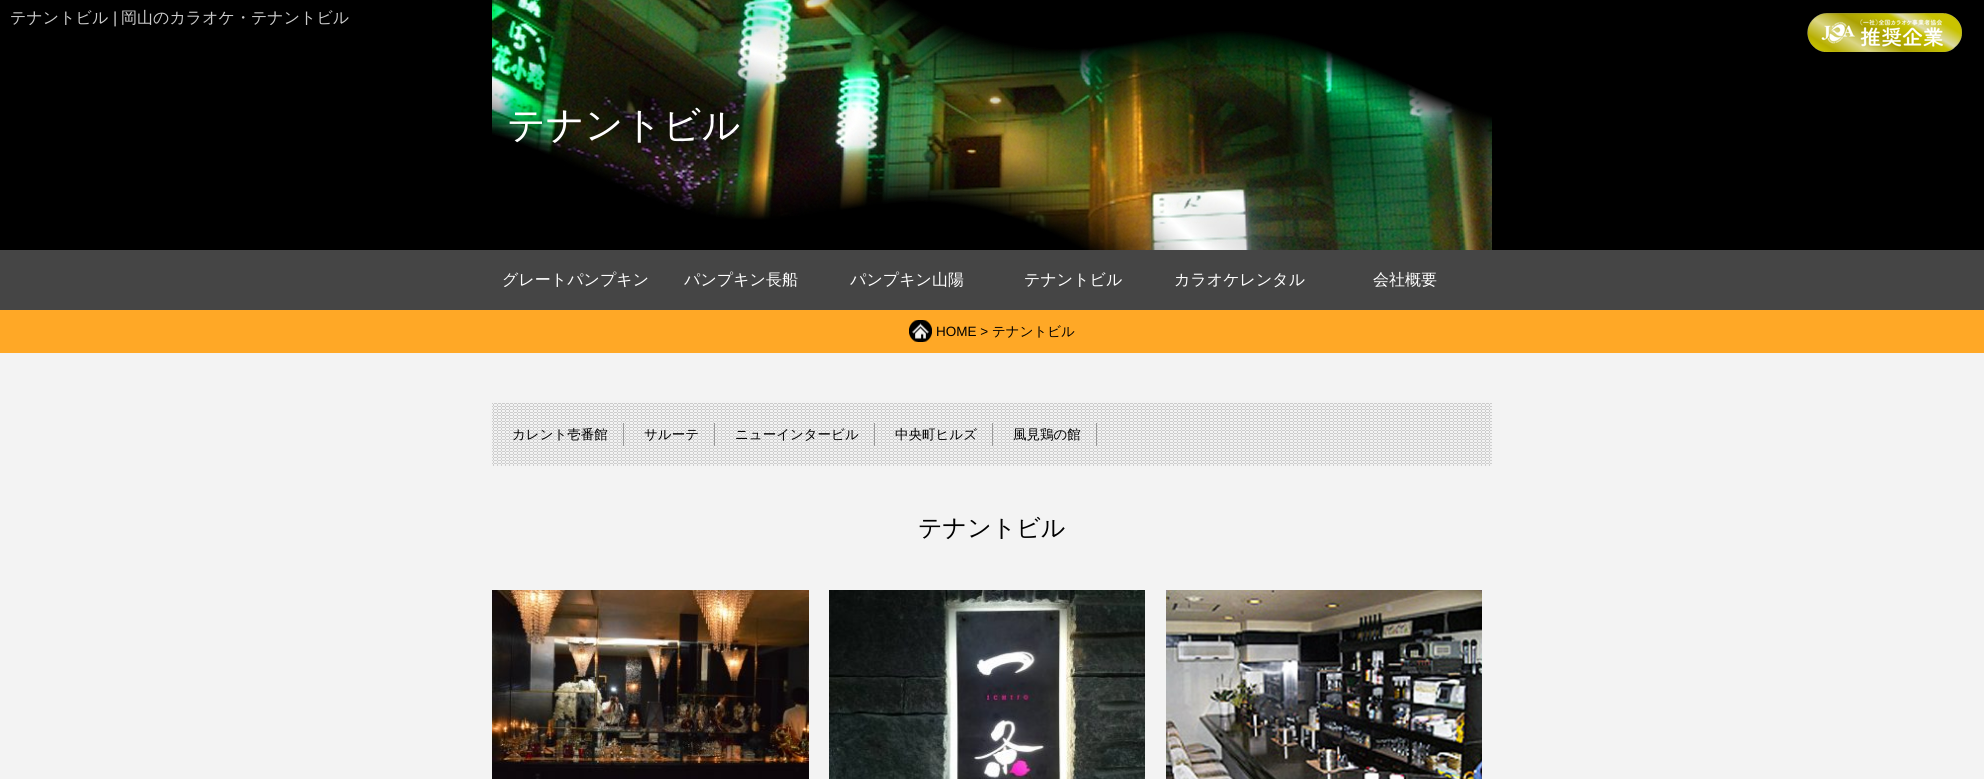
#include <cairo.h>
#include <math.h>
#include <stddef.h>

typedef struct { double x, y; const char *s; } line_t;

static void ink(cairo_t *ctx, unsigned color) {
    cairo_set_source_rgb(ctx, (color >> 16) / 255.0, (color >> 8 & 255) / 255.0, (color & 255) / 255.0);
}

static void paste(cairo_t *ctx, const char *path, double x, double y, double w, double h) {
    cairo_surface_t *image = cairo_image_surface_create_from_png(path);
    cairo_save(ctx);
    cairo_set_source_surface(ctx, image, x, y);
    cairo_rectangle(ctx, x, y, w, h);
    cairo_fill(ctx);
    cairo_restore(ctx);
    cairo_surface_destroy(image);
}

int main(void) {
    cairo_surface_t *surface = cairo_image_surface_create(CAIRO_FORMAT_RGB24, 1984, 779);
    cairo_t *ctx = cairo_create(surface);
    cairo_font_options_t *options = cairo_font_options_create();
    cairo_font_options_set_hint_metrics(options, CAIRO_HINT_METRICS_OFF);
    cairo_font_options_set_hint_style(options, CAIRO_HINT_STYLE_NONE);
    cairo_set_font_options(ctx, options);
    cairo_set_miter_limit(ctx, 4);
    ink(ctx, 0xF3F3F3);
    cairo_paint(ctx);
    ink(ctx, 0x000000);
    cairo_rectangle(ctx, 0, 0, 1984, 250);
    cairo_fill(ctx);
    cairo_select_font_face(ctx, "WenQuanYi Zen Hei Medium", CAIRO_FONT_SLANT_NORMAL, CAIRO_FONT_WEIGHT_NORMAL);
    cairo_set_font_size(ctx, 16);
    ink(ctx, 0xCCCCCC);
    cairo_move_to(ctx, 10, 23);
    cairo_show_text(ctx, "テナントビル");
    cairo_select_font_face(ctx, "Liberation Sans", CAIRO_FONT_SLANT_NORMAL, CAIRO_FONT_WEIGHT_NORMAL);
    cairo_move_to(ctx, 113, 23);
    cairo_show_text(ctx, "|");
    cairo_select_font_face(ctx, "WenQuanYi Zen Hei Medium", CAIRO_FONT_SLANT_NORMAL, CAIRO_FONT_WEIGHT_NORMAL);
    cairo_move_to(ctx, 121, 23);
    cairo_show_text(ctx, "岡山のカラオケ・テナントビル");
    paste(ctx, "media/1.png", 1807, 13, 155, 39);
    paste(ctx, "media/2.png", 492, 0, 1000, 250);
    cairo_set_font_size(ctx, 38);
    ink(ctx, 0xFFFFFF);
    cairo_move_to(ctx, 507, 138);
    cairo_show_text(ctx, "テナントビル");
    ink(ctx, 0x454545);
    cairo_rectangle(ctx, 0, 250, 1984, 60);
    cairo_fill(ctx);
    cairo_set_font_size(ctx, 16);
    ink(ctx, 0xFFFFFF);
    {
        static const line_t items[] = {
            {502, 285, "グレートパンプキン"},
            {684, 285, "パンプキン長船"},
            {850, 285, "パンプキン山陽"},
            {1024, 285, "テナントビル"},
            {1174, 285, "カラオケレンタル"},
            {1373, 285, "会社概要"},
        };
        for (size_t i = 0; i < sizeof items / sizeof *items; i++) {
            cairo_move_to(ctx, items[i].x, items[i].y);
            cairo_show_text(ctx, items[i].s);
        }
    }
    ink(ctx, 0xFFA826);
    cairo_rectangle(ctx, 0, 310, 1984, 43);
    cairo_fill(ctx);
    paste(ctx, "media/3.png", 909, 320, 23, 22);
    cairo_select_font_face(ctx, "Liberation Sans", CAIRO_FONT_SLANT_NORMAL, CAIRO_FONT_WEIGHT_NORMAL);
    cairo_set_font_size(ctx, 13.5);
    ink(ctx, 0x000000);
    cairo_move_to(ctx, 936, 336);
    cairo_show_text(ctx, "HOME >");
    cairo_select_font_face(ctx, "WenQuanYi Zen Hei Medium", CAIRO_FONT_SLANT_NORMAL, CAIRO_FONT_WEIGHT_NORMAL);
    cairo_move_to(ctx, 992, 336);
    cairo_show_text(ctx, "テナントビル");
    paste(ctx, "media/4.png", 492, 403, 1000, 63);
    ink(ctx, 0x999999);
    cairo_rectangle(ctx, 623, 423, 1, 23);
    cairo_fill(ctx);
    ink(ctx, 0x000000);
    cairo_move_to(ctx, 512, 439);
    cairo_show_text(ctx, "カレント壱番館");
    ink(ctx, 0x999999);
    cairo_rectangle(ctx, 714, 423, 1, 23);
    cairo_fill(ctx);
    ink(ctx, 0x000000);
    cairo_move_to(ctx, 644, 439);
    cairo_show_text(ctx, "サルーテ");
    ink(ctx, 0x999999);
    cairo_rectangle(ctx, 874, 423, 1, 23);
    cairo_fill(ctx);
    ink(ctx, 0x000000);
    cairo_move_to(ctx, 735, 439);
    cairo_show_text(ctx, "ニューインタービル");
    ink(ctx, 0x999999);
    cairo_rectangle(ctx, 992, 423, 1, 23);
    cairo_fill(ctx);
    ink(ctx, 0x000000);
    cairo_move_to(ctx, 895, 439);
    cairo_show_text(ctx, "中央町ヒルズ");
    ink(ctx, 0x999999);
    cairo_rectangle(ctx, 1096, 423, 1, 23);
    cairo_fill(ctx);
    ink(ctx, 0x000000);
    cairo_move_to(ctx, 1013, 439);
    cairo_show_text(ctx, "風見鶏の館");
    cairo_set_font_size(ctx, 24);
    cairo_move_to(ctx, 918, 536);
    cairo_show_text(ctx, "テナントビル");
    paste(ctx, "media/5.png", 492, 590, 317, 189);
    paste(ctx, "media/6.png", 829, 590, 316, 189);
    paste(ctx, "media/7.png", 1166, 590, 316, 189);
    cairo_surface_write_to_png(surface, "image.png");
    cairo_font_options_destroy(options);
    cairo_destroy(ctx);
    cairo_surface_destroy(surface);
    return 0;
}
